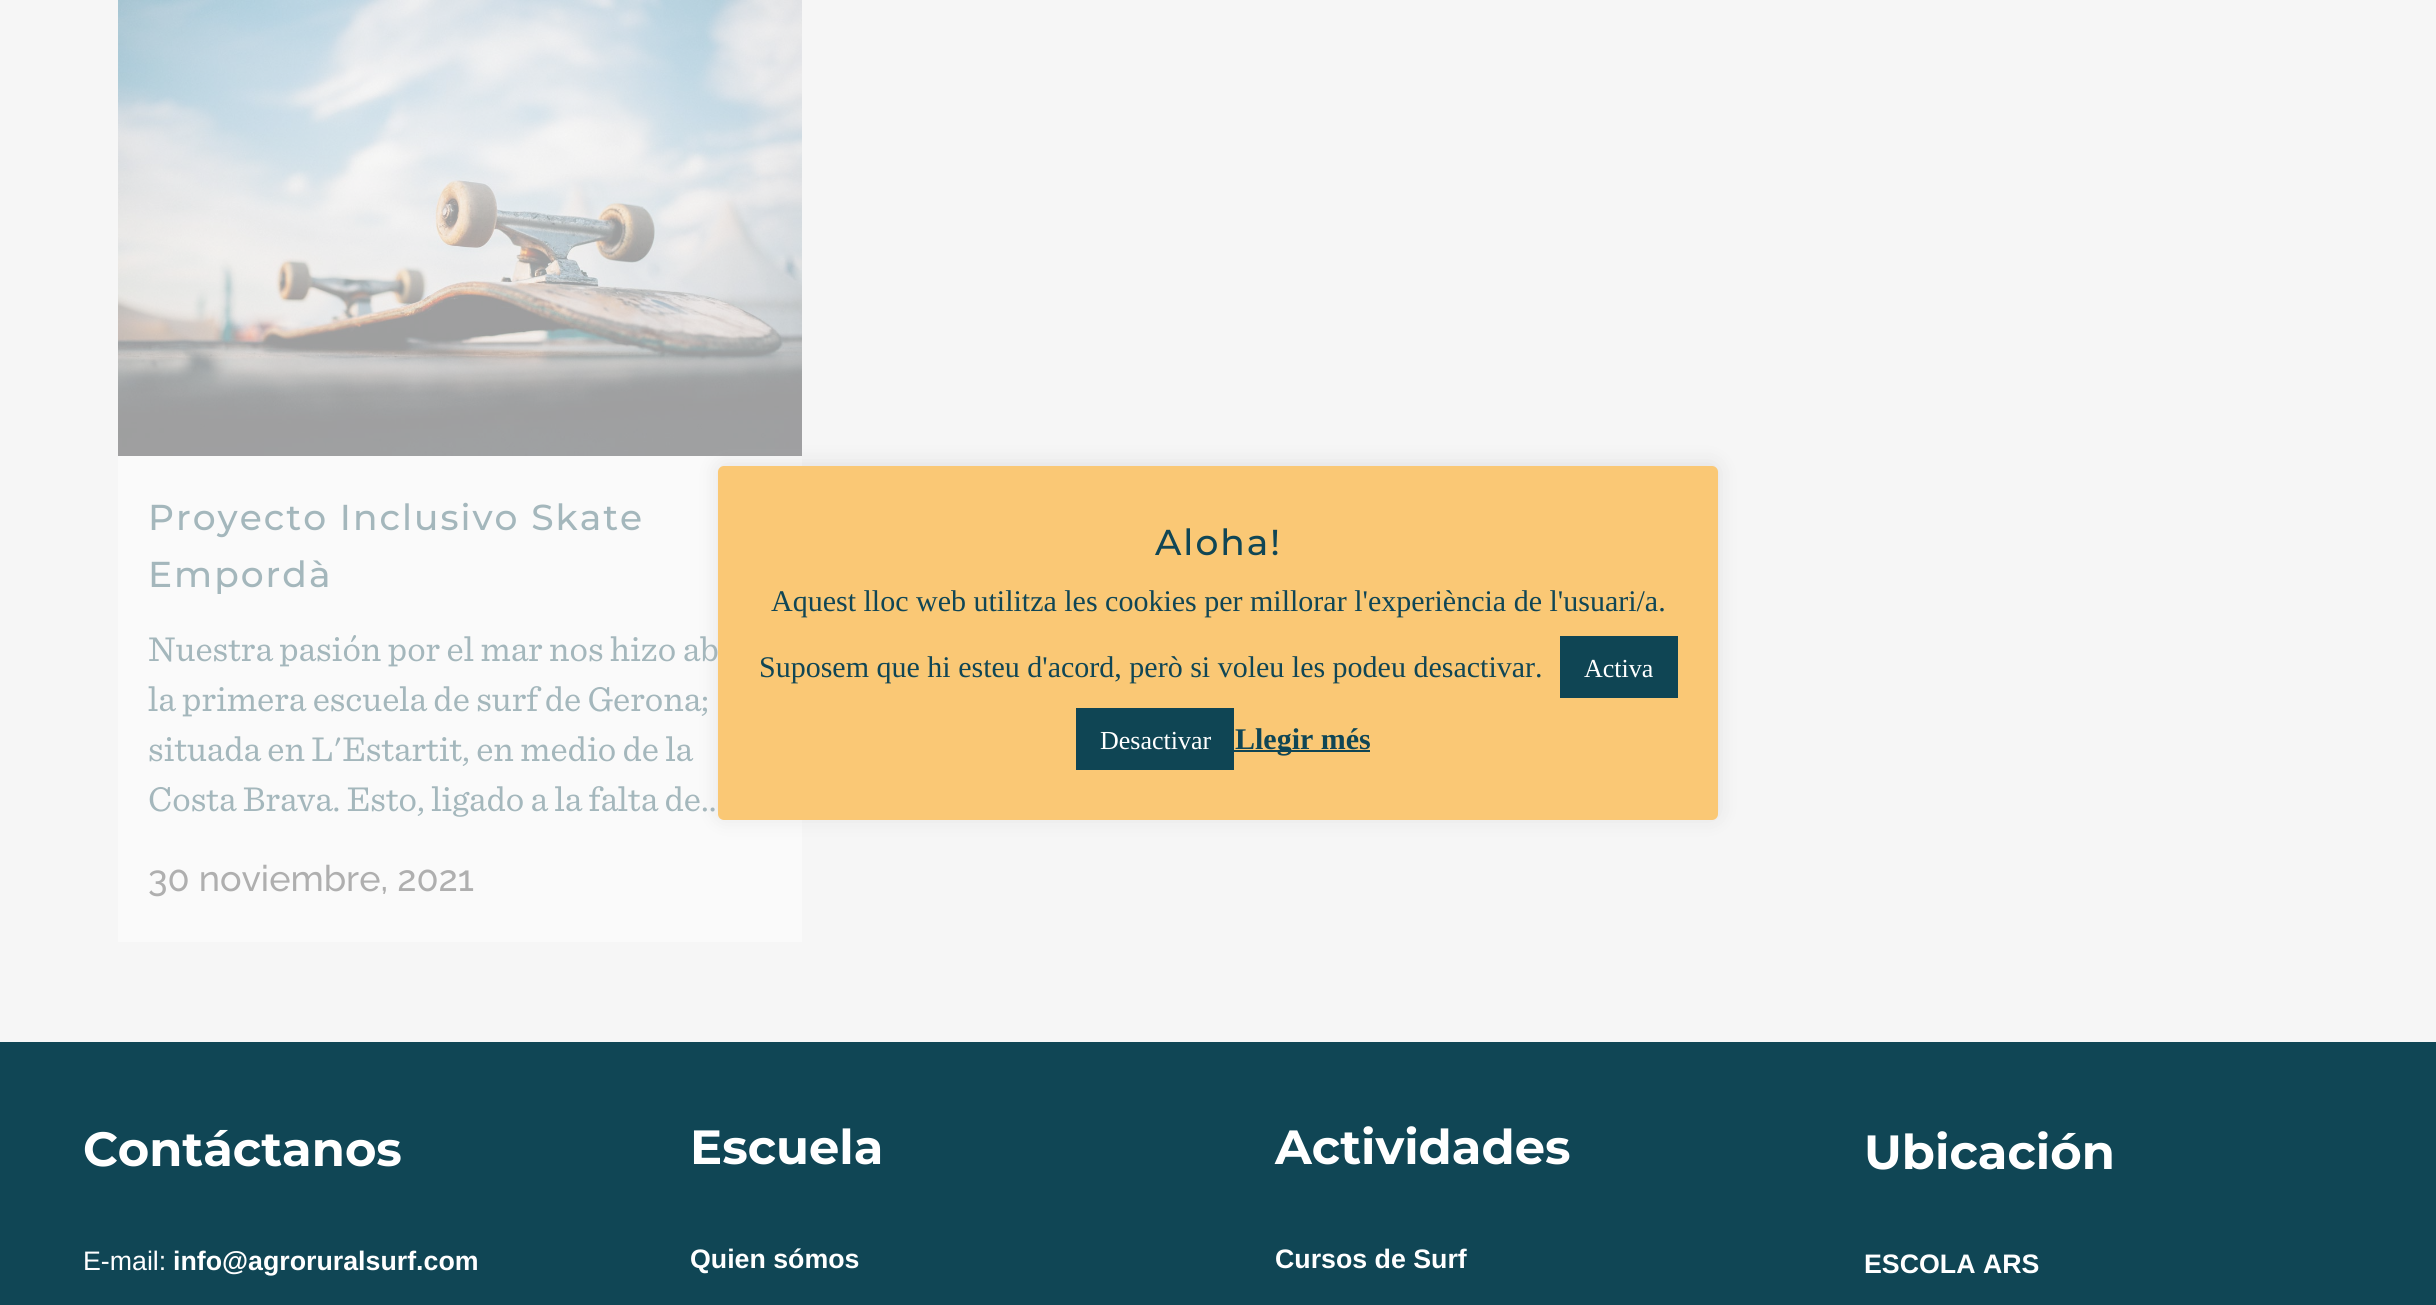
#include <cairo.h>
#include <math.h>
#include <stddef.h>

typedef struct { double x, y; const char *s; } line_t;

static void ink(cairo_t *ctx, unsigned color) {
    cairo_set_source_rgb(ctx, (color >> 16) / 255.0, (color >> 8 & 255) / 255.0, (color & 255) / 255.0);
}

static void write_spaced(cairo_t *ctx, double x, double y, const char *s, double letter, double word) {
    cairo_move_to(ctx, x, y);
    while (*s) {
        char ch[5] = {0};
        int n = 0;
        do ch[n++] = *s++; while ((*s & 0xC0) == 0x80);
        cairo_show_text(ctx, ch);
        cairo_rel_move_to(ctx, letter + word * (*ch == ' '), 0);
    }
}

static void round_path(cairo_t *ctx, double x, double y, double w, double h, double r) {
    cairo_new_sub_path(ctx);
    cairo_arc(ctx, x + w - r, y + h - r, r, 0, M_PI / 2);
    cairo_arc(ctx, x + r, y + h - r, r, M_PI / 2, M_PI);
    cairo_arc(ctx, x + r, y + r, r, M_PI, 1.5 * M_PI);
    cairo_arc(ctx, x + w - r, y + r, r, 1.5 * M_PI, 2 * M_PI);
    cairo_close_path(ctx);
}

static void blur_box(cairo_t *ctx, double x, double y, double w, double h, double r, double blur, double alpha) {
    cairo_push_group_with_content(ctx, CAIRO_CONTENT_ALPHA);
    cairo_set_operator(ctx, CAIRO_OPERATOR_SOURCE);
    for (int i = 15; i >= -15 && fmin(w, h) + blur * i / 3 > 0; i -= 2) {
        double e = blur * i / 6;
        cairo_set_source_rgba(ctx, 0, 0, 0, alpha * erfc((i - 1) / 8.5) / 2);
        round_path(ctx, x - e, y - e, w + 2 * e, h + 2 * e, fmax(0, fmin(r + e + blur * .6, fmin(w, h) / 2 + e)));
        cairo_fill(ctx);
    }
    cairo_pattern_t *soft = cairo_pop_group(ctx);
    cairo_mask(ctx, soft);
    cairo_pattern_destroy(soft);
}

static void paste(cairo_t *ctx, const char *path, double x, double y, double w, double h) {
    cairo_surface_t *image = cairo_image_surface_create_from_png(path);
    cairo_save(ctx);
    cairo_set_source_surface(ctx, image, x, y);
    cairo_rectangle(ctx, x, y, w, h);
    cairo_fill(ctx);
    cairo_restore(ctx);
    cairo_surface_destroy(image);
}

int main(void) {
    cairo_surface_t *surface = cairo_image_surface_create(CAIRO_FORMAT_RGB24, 2436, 1305);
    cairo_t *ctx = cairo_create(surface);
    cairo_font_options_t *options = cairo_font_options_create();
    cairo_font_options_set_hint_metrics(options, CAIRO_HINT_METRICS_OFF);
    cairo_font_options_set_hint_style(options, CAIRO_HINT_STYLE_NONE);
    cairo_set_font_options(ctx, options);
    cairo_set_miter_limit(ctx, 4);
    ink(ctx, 0xF6F6F6);
    cairo_paint(ctx);
    paste(ctx, "media/1.png", 118, 0, 684, 456);
    ink(ctx, 0xFAFAFA);
    cairo_rectangle(ctx, 118, 456, 684, 486);
    cairo_fill(ctx);
    cairo_select_font_face(ctx, "Montserrat Medium", CAIRO_FONT_SLANT_NORMAL, CAIRO_FONT_WEIGHT_NORMAL);
    cairo_set_font_size(ctx, 36);
    ink(ctx, 0xA4B7BC);
    write_spaced(ctx, 148, 530, "Proyecto Inclusivo Skate", 2, 0);
    write_spaced(ctx, 148, 587, "Empordà", 2, 0);
    cairo_select_font_face(ctx, "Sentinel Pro", CAIRO_FONT_SLANT_NORMAL, CAIRO_FONT_WEIGHT_NORMAL);
    {
        static const line_t items[] = {
            {148, 661, "Nuestra pasión por el mar nos hizo ab"},
            {148, 711, "la primera escuela de surf de Gerona;"},
            {148, 761, "situada en L'Estartit, en medio de la"},
            {148, 811, "Costa Brava. Esto, ligado a la falta de.."},
        };
        for (size_t i = 0; i < sizeof items / sizeof *items; i++) {
            cairo_move_to(ctx, items[i].x, items[i].y);
            cairo_show_text(ctx, items[i].s);
        }
    }
    cairo_select_font_face(ctx, "Raleway Medium", CAIRO_FONT_SLANT_NORMAL, CAIRO_FONT_WEIGHT_NORMAL);
    ink(ctx, 0xAFAFAF);
    cairo_move_to(ctx, 148, 891);
    cairo_show_text(ctx, "30 noviembre, 2021");
    ink(ctx, 0x104655);
    cairo_rectangle(ctx, 0, 1042, 2436, 263);
    cairo_fill(ctx);
    cairo_select_font_face(ctx, "Montserrat", CAIRO_FONT_SLANT_NORMAL, CAIRO_FONT_WEIGHT_BOLD);
    cairo_set_font_size(ctx, 48);
    ink(ctx, 0xFFFFFF);
    cairo_move_to(ctx, 83, 1166);
    cairo_show_text(ctx, "Contáctanos");
    cairo_select_font_face(ctx, "Liberation Sans", CAIRO_FONT_SLANT_NORMAL, CAIRO_FONT_WEIGHT_NORMAL);
    cairo_set_font_size(ctx, 26.75);
    cairo_move_to(ctx, 83, 1270);
    cairo_show_text(ctx, "E-mail:");
    cairo_select_font_face(ctx, "Liberation Sans", CAIRO_FONT_SLANT_NORMAL, CAIRO_FONT_WEIGHT_BOLD);
    cairo_move_to(ctx, 173, 1270);
    cairo_show_text(ctx, "info@agroruralsurf.com");
    cairo_select_font_face(ctx, "Montserrat", CAIRO_FONT_SLANT_NORMAL, CAIRO_FONT_WEIGHT_BOLD);
    cairo_set_font_size(ctx, 48);
    cairo_move_to(ctx, 690, 1164);
    cairo_show_text(ctx, "Escuela");
    cairo_select_font_face(ctx, "Liberation Sans", CAIRO_FONT_SLANT_NORMAL, CAIRO_FONT_WEIGHT_BOLD);
    cairo_set_font_size(ctx, 26.75);
    cairo_move_to(ctx, 690, 1268);
    cairo_show_text(ctx, "Quien sómos");
    cairo_select_font_face(ctx, "Montserrat", CAIRO_FONT_SLANT_NORMAL, CAIRO_FONT_WEIGHT_BOLD);
    cairo_set_font_size(ctx, 48);
    cairo_move_to(ctx, 1275, 1164);
    cairo_show_text(ctx, "Actividades");
    cairo_select_font_face(ctx, "Liberation Sans", CAIRO_FONT_SLANT_NORMAL, CAIRO_FONT_WEIGHT_BOLD);
    cairo_set_font_size(ctx, 26.75);
    cairo_move_to(ctx, 1275, 1268);
    cairo_show_text(ctx, "Cursos de Surf");
    cairo_select_font_face(ctx, "Montserrat", CAIRO_FONT_SLANT_NORMAL, CAIRO_FONT_WEIGHT_BOLD);
    cairo_set_font_size(ctx, 48);
    cairo_move_to(ctx, 1864, 1169);
    cairo_show_text(ctx, "Ubicación");
    cairo_select_font_face(ctx, "Liberation Sans", CAIRO_FONT_SLANT_NORMAL, CAIRO_FONT_WEIGHT_BOLD);
    cairo_set_font_size(ctx, 26.75);
    cairo_move_to(ctx, 1864, 1273);
    cairo_show_text(ctx, "ESCOLA ARS");
    ink(ctx, 0xACABAB);
    blur_box(ctx, 718, 464, 1000, 354, 6, 10, 0.3);
    ink(ctx, 0xFAC875);
    round_path(ctx, 718, 466, 1000, 354, 6);
    cairo_fill(ctx);
    cairo_select_font_face(ctx, "Montserrat Medium", CAIRO_FONT_SLANT_NORMAL, CAIRO_FONT_WEIGHT_NORMAL);
    cairo_set_font_size(ctx, 36);
    ink(ctx, 0x104655);
    write_spaced(ctx, 1155, 555, "Aloha!", 2, 0);
    cairo_select_font_face(ctx, "Liberation Serif", CAIRO_FONT_SLANT_NORMAL, CAIRO_FONT_WEIGHT_NORMAL);
    cairo_set_font_size(ctx, 30);
    cairo_move_to(ctx, 771, 611);
    cairo_show_text(ctx, "Aquest lloc web utilitza les cookies per millorar l'experiència de l'usuari/a.");
    cairo_move_to(ctx, 759, 677);
    cairo_show_text(ctx, "Suposem que hi esteu d'acord, però si voleu les podeu desactivar.");
    ink(ctx, 0x0F4554);
    cairo_rectangle(ctx, 1560, 636, 118, 62);
    cairo_fill(ctx);
    cairo_set_font_size(ctx, 26);
    ink(ctx, 0xFFFFFF);
    cairo_move_to(ctx, 1584, 677);
    cairo_show_text(ctx, "Activa");
    ink(ctx, 0x0F4554);
    cairo_rectangle(ctx, 1076, 708, 158, 62);
    cairo_fill(ctx);
    ink(ctx, 0xFFFFFF);
    cairo_move_to(ctx, 1100, 749);
    cairo_show_text(ctx, "Desactivar");
    ink(ctx, 0x0F4554);
    cairo_rectangle(ctx, 1234, 750, 136, 2);
    cairo_fill(ctx);
    cairo_select_font_face(ctx, "Liberation Serif", CAIRO_FONT_SLANT_NORMAL, CAIRO_FONT_WEIGHT_BOLD);
    cairo_set_font_size(ctx, 30);
    ink(ctx, 0x104655);
    cairo_move_to(ctx, 1235, 749);
    cairo_show_text(ctx, "Llegir més");
    cairo_surface_write_to_png(surface, "image.png");
    cairo_font_options_destroy(options);
    cairo_destroy(ctx);
    cairo_surface_destroy(surface);
    return 0;
}
